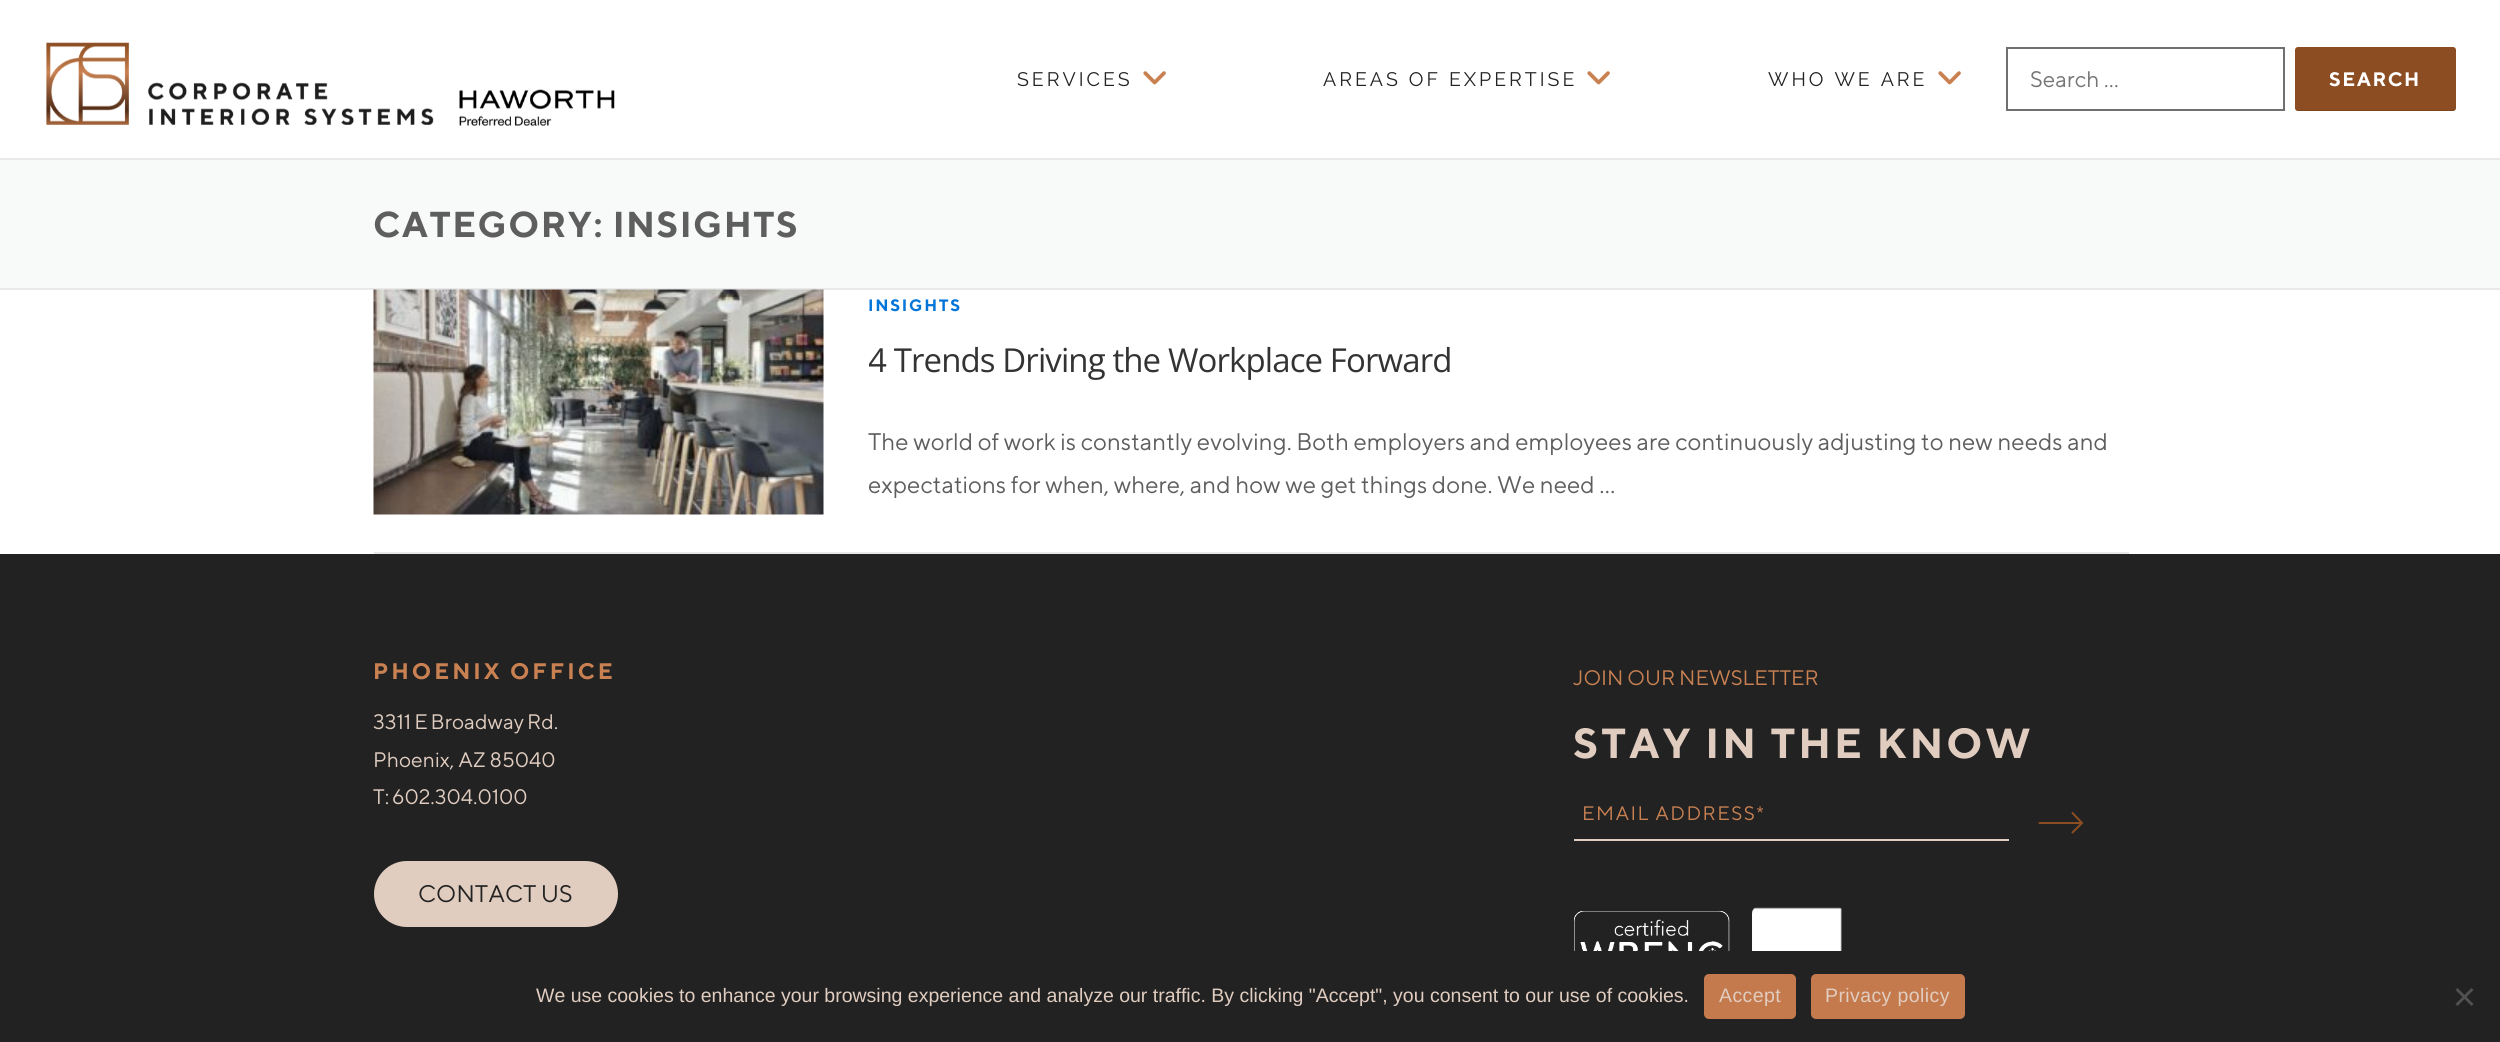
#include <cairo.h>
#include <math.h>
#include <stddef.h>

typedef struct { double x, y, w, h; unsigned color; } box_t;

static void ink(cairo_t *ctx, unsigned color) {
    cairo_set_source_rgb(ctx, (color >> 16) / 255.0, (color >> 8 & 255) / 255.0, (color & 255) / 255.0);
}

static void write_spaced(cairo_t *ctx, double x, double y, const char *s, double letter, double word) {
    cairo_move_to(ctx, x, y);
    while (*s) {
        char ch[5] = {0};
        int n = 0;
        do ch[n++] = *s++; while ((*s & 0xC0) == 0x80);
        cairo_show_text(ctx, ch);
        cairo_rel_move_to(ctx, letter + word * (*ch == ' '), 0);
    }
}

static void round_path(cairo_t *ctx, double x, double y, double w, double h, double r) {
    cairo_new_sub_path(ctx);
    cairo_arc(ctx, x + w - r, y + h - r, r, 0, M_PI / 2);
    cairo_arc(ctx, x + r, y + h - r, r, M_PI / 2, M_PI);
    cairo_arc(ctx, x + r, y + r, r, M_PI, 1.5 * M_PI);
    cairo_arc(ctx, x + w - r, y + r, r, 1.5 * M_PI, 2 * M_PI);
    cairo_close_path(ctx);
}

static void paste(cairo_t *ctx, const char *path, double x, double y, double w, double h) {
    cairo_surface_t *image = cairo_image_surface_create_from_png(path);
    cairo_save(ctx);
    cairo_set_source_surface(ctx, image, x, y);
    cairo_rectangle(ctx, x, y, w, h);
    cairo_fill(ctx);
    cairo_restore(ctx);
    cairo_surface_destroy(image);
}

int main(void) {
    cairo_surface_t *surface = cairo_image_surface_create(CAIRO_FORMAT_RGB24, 2500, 1042);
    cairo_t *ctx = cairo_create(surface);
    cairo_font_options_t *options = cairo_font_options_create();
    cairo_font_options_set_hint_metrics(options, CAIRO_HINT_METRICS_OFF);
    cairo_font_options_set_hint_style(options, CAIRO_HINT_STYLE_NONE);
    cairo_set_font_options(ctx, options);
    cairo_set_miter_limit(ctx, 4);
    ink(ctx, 0xFFFFFF);
    cairo_paint(ctx);
    paste(ctx, "media/1.png", 46, 42, 569, 84);
    cairo_select_font_face(ctx, "Raleway", CAIRO_FONT_SLANT_NORMAL, CAIRO_FONT_WEIGHT_NORMAL);
    cairo_set_font_size(ctx, 19.5);
    ink(ctx, 0x222223);
    write_spaced(ctx, 1017, 86, "SERVICES", 3, 0);
    paste(ctx, "media/2.png", 1143, 71, 23, 14);
    write_spaced(ctx, 1323, 86, "AREAS OF EXPERTISE", 3, 0);
    paste(ctx, "media/2.png", 1587, 71, 23, 14);
    write_spaced(ctx, 1768, 86, "WHO WE ARE", 3, 0);
    paste(ctx, "media/2.png", 1938, 71, 23, 14);
    cairo_rectangle(ctx, 2007, 48, 277, 62);
    ink(ctx, 0x707070);
    cairo_stroke(ctx);
    cairo_select_font_face(ctx, "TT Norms", CAIRO_FONT_SLANT_NORMAL, CAIRO_FONT_WEIGHT_NORMAL);
    cairo_set_font_size(ctx, 22.5);
    ink(ctx, 0x757575);
    cairo_move_to(ctx, 2030, 87);
    cairo_show_text(ctx, "Search …");
    ink(ctx, 0x8C4D22);
    round_path(ctx, 2295, 47, 161, 64, 3);
    cairo_fill(ctx);
    cairo_set_source_rgba(ctx, 0, 0, 0, 0.1);
    cairo_new_path(ctx);
    cairo_move_to(ctx, 2295, 106);
    cairo_line_to(ctx, 2295, 108);
    cairo_curve_to(ctx, 2295, 110, 2296, 111, 2298, 111);
    cairo_line_to(ctx, 2453, 111);
    cairo_curve_to(ctx, 2455, 111, 2456, 110, 2456, 108);
    cairo_line_to(ctx, 2456, 106);
    cairo_curve_to(ctx, 2456, 108, 2454, 110, 2452, 110);
    cairo_line_to(ctx, 2298, 110);
    cairo_curve_to(ctx, 2296, 110, 2295, 108, 2295, 106);
    cairo_close_path(ctx);
    cairo_fill(ctx);
    cairo_select_font_face(ctx, "TT Norms", CAIRO_FONT_SLANT_NORMAL, CAIRO_FONT_WEIGHT_BOLD);
    cairo_set_font_size(ctx, 19.5);
    ink(ctx, 0xFFFFFF);
    write_spaced(ctx, 2329, 86, "SEARCH", 1.5, 0);
    {
        static const box_t items[] = {
            {0, 160, 2500, 128, 0xF8F9F9},
            {0, 158, 2500, 2, 0xE9E9E9},
            {0, 288, 2500, 2, 0xE9E9E9},
        };
        for (size_t i = 0; i < sizeof items / sizeof *items; i++) {
            ink(ctx, items[i].color);
            cairo_rectangle(ctx, items[i].x, items[i].y, items[i].w, items[i].h);
            cairo_fill(ctx);
        }
    }
    cairo_set_font_size(ctx, 36);
    ink(ctx, 0x5E5E5E);
    write_spaced(ctx, 373, 237, "CATEGORY: INSIGHTS", 1.5, 0);
    ink(ctx, 0xE9E9E9);
    cairo_rectangle(ctx, 374, 552, 1755, 2);
    cairo_fill(ctx);
    paste(ctx, "media/3.png", 373, 289, 451, 226);
    cairo_set_font_size(ctx, 16.5);
    ink(ctx, 0x0275D8);
    write_spaced(ctx, 868, 311, "INSIGHTS", 1.75, 0);
    cairo_save(ctx);
    cairo_rectangle(ctx, 869, 290, 1260, 219);
    cairo_clip(ctx);
    cairo_select_font_face(ctx, "Open Sans", CAIRO_FONT_SLANT_NORMAL, CAIRO_FONT_WEIGHT_NORMAL);
    cairo_set_font_size(ctx, 33);
    ink(ctx, 0x333333);
    write_spaced(ctx, 868, 372, "4 Trends Driving the Workplace Forward", -0.9, 0);
    cairo_restore(ctx);
    cairo_select_font_face(ctx, "TT Norms", CAIRO_FONT_SLANT_NORMAL, CAIRO_FONT_WEIGHT_NORMAL);
    cairo_set_font_size(ctx, 24);
    ink(ctx, 0x5E5E5E);
    cairo_move_to(ctx, 868, 450);
    cairo_show_text(ctx, "The world of work is constantly evolving. Both employers and employees are continuously adjusting to new needs and");
    cairo_save(ctx);
    cairo_rectangle(ctx, 869, 290, 1260, 219);
    cairo_clip(ctx);
    cairo_move_to(ctx, 868, 493);
    cairo_show_text(ctx, "expectations for when, where, and how we get things done. We need …");
    cairo_restore(ctx);
    ink(ctx, 0x222223);
    cairo_rectangle(ctx, 0, 554, 2500, 488);
    cairo_fill(ctx);
    cairo_select_font_face(ctx, "TT Norms", CAIRO_FONT_SLANT_NORMAL, CAIRO_FONT_WEIGHT_BOLD);
    cairo_set_font_size(ctx, 22.5);
    ink(ctx, 0xC98152);
    write_spaced(ctx, 373, 679, "PHOENIX OFFICE", 3, 0);
    cairo_select_font_face(ctx, "TT Norms", CAIRO_FONT_SLANT_NORMAL, CAIRO_FONT_WEIGHT_NORMAL);
    cairo_set_font_size(ctx, 21);
    ink(ctx, 0xE1CDC0);
    write_spaced(ctx, 373, 729, "3311 E Broadway Rd.", 0, -1);
    cairo_move_to(ctx, 373, 767);
    cairo_show_text(ctx, "Phoenix, AZ 85040");
    write_spaced(ctx, 373, 804, "T: 602.304.0100", 0, -1);
    round_path(ctx, 374, 861, 244, 66, 33);
    cairo_fill(ctx);
    cairo_set_font_size(ctx, 24);
    ink(ctx, 0x222223);
    cairo_move_to(ctx, 418, 902);
    cairo_show_text(ctx, "CONTACT US");
    cairo_set_font_size(ctx, 21);
    ink(ctx, 0xC98152);
    cairo_move_to(ctx, 1573, 685);
    cairo_show_text(ctx, "JOIN OUR NEWSLETTER");
    cairo_select_font_face(ctx, "TT Norms", CAIRO_FONT_SLANT_NORMAL, CAIRO_FONT_WEIGHT_BOLD);
    cairo_set_font_size(ctx, 42);
    ink(ctx, 0xE1CDC0);
    write_spaced(ctx, 1573, 758, "STAY IN THE KNOW", 3, 0);
    cairo_rectangle(ctx, 1574, 839, 435, 2);
    cairo_fill(ctx);
    cairo_select_font_face(ctx, "TT Norms", CAIRO_FONT_SLANT_NORMAL, CAIRO_FONT_WEIGHT_NORMAL);
    cairo_set_font_size(ctx, 19.5);
    ink(ctx, 0xC98152);
    write_spaced(ctx, 1582, 820, "EMAIL ADDRESS*", 1.5, 0);
    cairo_new_path(ctx);
    cairo_move_to(ctx, 2072.5, 832.5);
    cairo_line_to(ctx, 2082, 823);
    cairo_line_to(ctx, 2072.5, 813);
    cairo_move_to(ctx, 2039.5, 823);
    cairo_line_to(ctx, 2082, 823);
    ink(ctx, 0x8C4D22);
    cairo_set_line_cap(ctx, CAIRO_LINE_CAP_ROUND);
    cairo_stroke(ctx);
    paste(ctx, "media/4.png", 1574, 911, 156, 40);
    paste(ctx, "media/5.png", 1752, 907, 90, 44);
    cairo_select_font_face(ctx, "Liberation Sans", CAIRO_FONT_SLANT_NORMAL, CAIRO_FONT_WEIGHT_NORMAL);
    ink(ctx, 0xE1CDC0);
    cairo_move_to(ctx, 536, 1002);
    cairo_show_text(ctx, "We use cookies to enhance your browsing experience and analyze our traffic. By clicking \"Accept\", you consent to our use of cookies.");
    ink(ctx, 0xC47A4C);
    round_path(ctx, 1704, 974, 92, 45, 5);
    cairo_fill(ctx);
    ink(ctx, 0xE1CDC0);
    write_spaced(ctx, 1719, 1002, "Accept", 0.4, 0);
    ink(ctx, 0xC47A4C);
    round_path(ctx, 1811, 974, 154, 45, 5);
    cairo_fill(ctx);
    ink(ctx, 0xE1CDC0);
    write_spaced(ctx, 1825, 1002, "Privacy policy", 0.4, 0);
    ink(ctx, 0x515152);
    cairo_new_path(ctx);
    cairo_move_to(ctx, 2471.5, 988);
    cairo_line_to(ctx, 2473.5, 990);
    cairo_line_to(ctx, 2457.5, 1006);
    cairo_line_to(ctx, 2455.5, 1004);
    cairo_close_path(ctx);
    cairo_fill(ctx);
    cairo_new_path(ctx);
    cairo_move_to(ctx, 2455.5, 990);
    cairo_line_to(ctx, 2457.5, 988);
    cairo_line_to(ctx, 2473.5, 1004);
    cairo_line_to(ctx, 2471.5, 1006);
    cairo_close_path(ctx);
    cairo_fill(ctx);
    cairo_surface_write_to_png(surface, "image.png");
    cairo_font_options_destroy(options);
    cairo_destroy(ctx);
    cairo_surface_destroy(surface);
    return 0;
}
